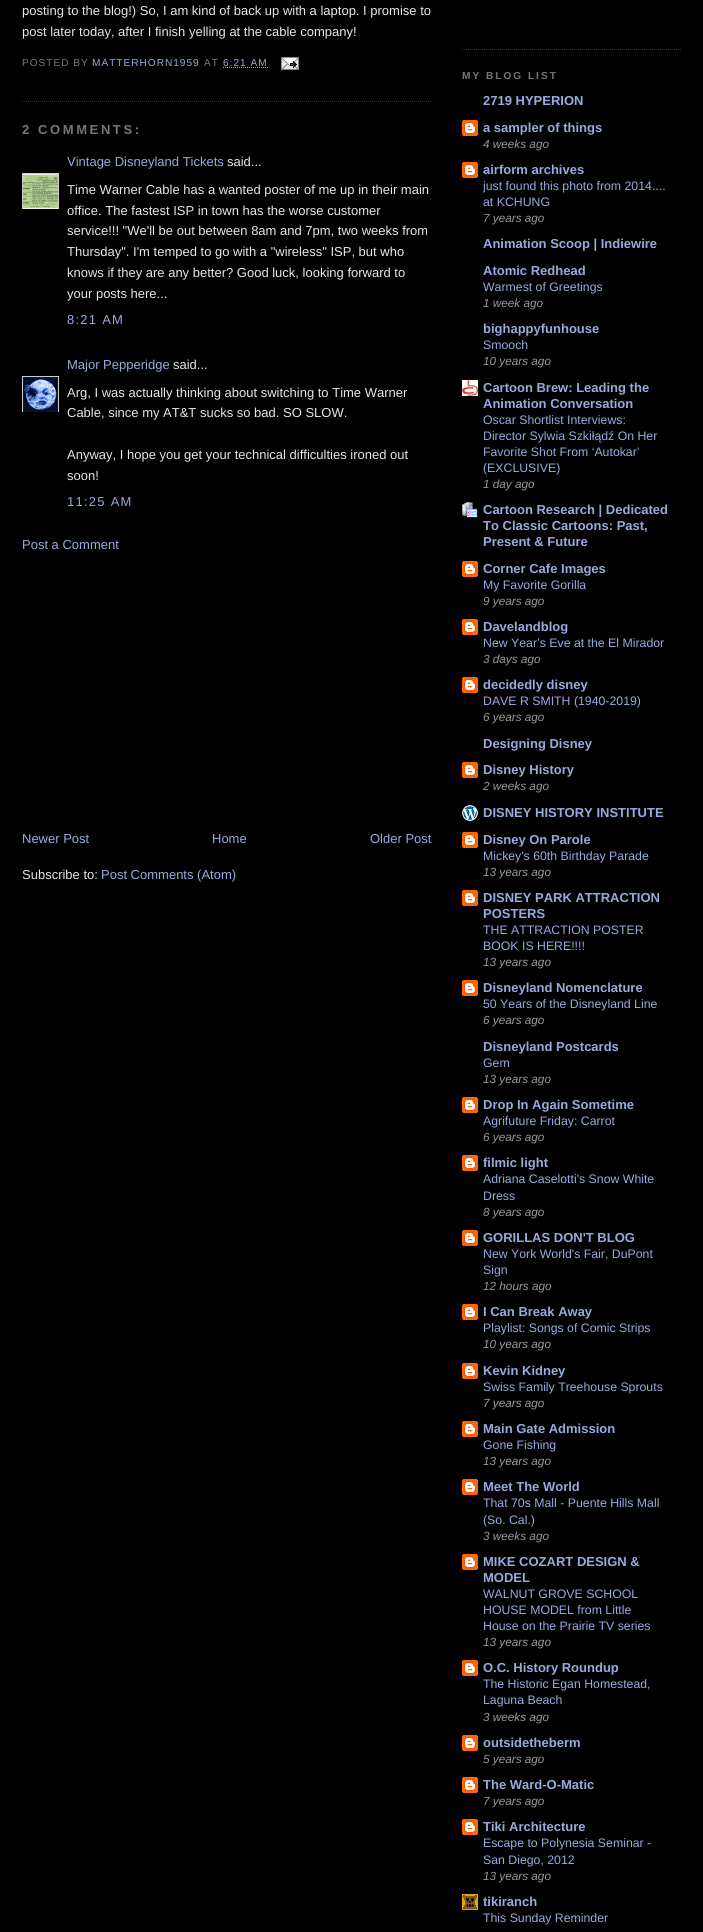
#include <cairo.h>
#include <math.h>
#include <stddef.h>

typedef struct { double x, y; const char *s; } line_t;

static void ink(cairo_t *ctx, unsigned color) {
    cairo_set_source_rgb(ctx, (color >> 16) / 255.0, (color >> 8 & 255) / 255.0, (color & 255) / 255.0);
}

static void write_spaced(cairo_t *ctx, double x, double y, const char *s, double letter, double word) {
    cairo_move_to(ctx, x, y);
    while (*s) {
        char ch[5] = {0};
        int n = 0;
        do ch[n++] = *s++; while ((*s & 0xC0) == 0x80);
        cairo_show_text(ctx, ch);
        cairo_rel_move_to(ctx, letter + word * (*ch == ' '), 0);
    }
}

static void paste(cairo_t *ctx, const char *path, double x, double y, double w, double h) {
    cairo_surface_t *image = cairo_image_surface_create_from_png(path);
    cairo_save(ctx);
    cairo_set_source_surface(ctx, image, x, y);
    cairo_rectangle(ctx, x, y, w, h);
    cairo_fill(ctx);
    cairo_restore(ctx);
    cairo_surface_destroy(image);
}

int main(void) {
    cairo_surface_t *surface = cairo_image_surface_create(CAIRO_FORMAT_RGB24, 703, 1932);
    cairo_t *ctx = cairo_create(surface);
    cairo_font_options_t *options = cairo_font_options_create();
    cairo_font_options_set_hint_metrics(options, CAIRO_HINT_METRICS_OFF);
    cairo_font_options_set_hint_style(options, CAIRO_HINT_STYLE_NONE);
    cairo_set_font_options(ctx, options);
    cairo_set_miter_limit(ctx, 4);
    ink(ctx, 0x000000);
    cairo_paint(ctx);
    cairo_new_path(ctx);
    cairo_move_to(ctx, 22, 101.5);
    cairo_line_to(ctx, 432, 101.5);
    ink(ctx, 0x333333);
    cairo_set_line_width(ctx, 1);
    cairo_set_dash(ctx, (double[]){1, 1}, 2, 0);
    cairo_stroke(ctx);
    cairo_select_font_face(ctx, "Liberation Sans", CAIRO_FONT_SLANT_NORMAL, CAIRO_FONT_WEIGHT_NORMAL);
    cairo_set_font_size(ctx, 13);
    ink(ctx, 0xE6E6E6);
    cairo_move_to(ctx, 22, 15);
    cairo_show_text(ctx, "posting to the blog!) So, I am kind of back up with a laptop. I promise to");
    cairo_move_to(ctx, 22, 36);
    cairo_show_text(ctx, "post later today, after I finish yelling at the cable company!");
    cairo_set_font_size(ctx, 10.1);
    ink(ctx, 0x777777);
    write_spaced(ctx, 22, 66, "POSTED BY", 1, 0);
    ink(ctx, 0x99AADD);
    write_spaced(ctx, 92, 66, "MATTERHORN1959", 1, 0);
    ink(ctx, 0x777777);
    write_spaced(ctx, 204, 66, "AT", 1, 0);
    ink(ctx, 0x99AADD);
    write_spaced(ctx, 223, 66, "6:21 AM", 1, 0);
    cairo_new_path(ctx);
    cairo_move_to(ctx, 223, 67.5);
    cairo_line_to(ctx, 268, 67.5);
    cairo_stroke(ctx);
    paste(ctx, "media/1.png", 281, 57, 18, 13);
    cairo_select_font_face(ctx, "Liberation Sans", CAIRO_FONT_SLANT_NORMAL, CAIRO_FONT_WEIGHT_BOLD);
    cairo_set_font_size(ctx, 13);
    ink(ctx, 0x777777);
    write_spaced(ctx, 22, 134, "2 COMMENTS:", 2.6, 0);
    cairo_select_font_face(ctx, "Liberation Sans", CAIRO_FONT_SLANT_NORMAL, CAIRO_FONT_WEIGHT_NORMAL);
    ink(ctx, 0x99AADD);
    cairo_move_to(ctx, 67, 166);
    cairo_show_text(ctx, "Vintage Disneyland Tickets");
    ink(ctx, 0xE6E6E6);
    cairo_move_to(ctx, 227, 166);
    cairo_show_text(ctx, "said...");
    cairo_save(ctx);
    cairo_rectangle(ctx, 22, 173, 37, 36);
    cairo_clip(ctx);
    cairo_rectangle(ctx, 22.5, 173.5, 36, 36);
    ink(ctx, 0xCCCCCC);
    cairo_set_dash(ctx, NULL, 0, 0);
    cairo_stroke(ctx);
    cairo_restore(ctx);
    paste(ctx, "media/2.png", 23, 174, 35, 35);
    {
        static const line_t items[] = {
            {67, 194, "Time Warner Cable has a wanted poster of me up in their main"},
            {67, 215, "office. The fastest ISP in town has the worse customer"},
            {67, 235, "service!!! \"We'll be out between 8am and 7pm, two weeks from"},
            {67, 256, "Thursday\". I'm temped to go with a \"wireless\" ISP, but who"},
            {67, 277, "knows if they are any better? Good luck, looking forward to"},
            {67, 298, "your posts here..."},
        };
        for (size_t i = 0; i < sizeof items / sizeof *items; i++) {
            cairo_move_to(ctx, items[i].x, items[i].y);
            cairo_show_text(ctx, items[i].s);
        }
    }
    ink(ctx, 0x99AADD);
    write_spaced(ctx, 67, 324, "8:21 AM", 1.25, 0);
    cairo_move_to(ctx, 67, 369);
    cairo_show_text(ctx, "Major Pepperidge");
    ink(ctx, 0xE6E6E6);
    cairo_move_to(ctx, 173, 369);
    cairo_show_text(ctx, "said...");
    cairo_save(ctx);
    cairo_rectangle(ctx, 22, 376, 37, 36);
    cairo_clip(ctx);
    cairo_rectangle(ctx, 22.5, 376.5, 36, 36);
    ink(ctx, 0xCCCCCC);
    cairo_set_dash(ctx, NULL, 0, 0);
    cairo_stroke(ctx);
    cairo_restore(ctx);
    paste(ctx, "media/3.png", 23, 377, 35, 35);
    {
        static const line_t items[] = {
            {67, 397, "Arg, I was actually thinking about switching to Time Warner"},
            {67, 417, "Cable, since my AT&T sucks so bad. SO SLOW."},
            {67, 459, "Anyway, I hope you get your technical difficulties ironed out"},
            {67, 480, "soon!"},
        };
        for (size_t i = 0; i < sizeof items / sizeof *items; i++) {
            cairo_move_to(ctx, items[i].x, items[i].y);
            cairo_show_text(ctx, items[i].s);
        }
    }
    ink(ctx, 0x99AADD);
    write_spaced(ctx, 67, 506, "11:25 AM", 1.25, 0);
    {
        static const line_t items[] = {
            {22, 549, "Post a Comment"},
            {22, 843, "Newer Post"},
            {212, 843, "Home"},
            {370, 843, "Older Post"},
        };
        for (size_t i = 0; i < sizeof items / sizeof *items; i++) {
            cairo_move_to(ctx, items[i].x, items[i].y);
            cairo_show_text(ctx, items[i].s);
        }
    }
    ink(ctx, 0xE6E6E6);
    cairo_move_to(ctx, 22, 879);
    cairo_show_text(ctx, "Subscribe to:");
    ink(ctx, 0x99AADD);
    cairo_move_to(ctx, 101, 879);
    cairo_show_text(ctx, "Post Comments (Atom)");
    cairo_new_path(ctx);
    cairo_move_to(ctx, 462, 49.5);
    cairo_line_to(ctx, 682, 49.5);
    ink(ctx, 0x333333);
    cairo_stroke(ctx);
    cairo_select_font_face(ctx, "Liberation Sans", CAIRO_FONT_SLANT_NORMAL, CAIRO_FONT_WEIGHT_BOLD);
    cairo_set_font_size(ctx, 10.1);
    ink(ctx, 0x777777);
    write_spaced(ctx, 462, 79, "MY BLOG LIST", 2, 0);
    cairo_set_font_size(ctx, 13);
    ink(ctx, 0x99AADD);
    cairo_move_to(ctx, 483, 105);
    cairo_show_text(ctx, "2719 HYPERION");
    paste(ctx, "media/4.png", 462, 120, 16, 16);
    cairo_move_to(ctx, 483, 132);
    cairo_show_text(ctx, "a sampler of things");
    cairo_select_font_face(ctx, "Liberation Sans", CAIRO_FONT_SLANT_ITALIC, CAIRO_FONT_WEIGHT_NORMAL);
    cairo_set_font_size(ctx, 11.75);
    ink(ctx, 0x999999);
    cairo_move_to(ctx, 483, 148);
    cairo_show_text(ctx, "4 weeks ago");
    paste(ctx, "media/4.png", 462, 162, 16, 16);
    cairo_select_font_face(ctx, "Liberation Sans", CAIRO_FONT_SLANT_NORMAL, CAIRO_FONT_WEIGHT_BOLD);
    cairo_set_font_size(ctx, 13);
    ink(ctx, 0x99AADD);
    cairo_move_to(ctx, 483, 174);
    cairo_show_text(ctx, "airform archives");
    cairo_select_font_face(ctx, "Liberation Sans", CAIRO_FONT_SLANT_NORMAL, CAIRO_FONT_WEIGHT_NORMAL);
    cairo_set_font_size(ctx, 12.3);
    cairo_move_to(ctx, 483, 190);
    cairo_show_text(ctx, "just found this photo from 2014....");
    cairo_move_to(ctx, 483, 206);
    cairo_show_text(ctx, "at KCHUNG");
    cairo_select_font_face(ctx, "Liberation Sans", CAIRO_FONT_SLANT_ITALIC, CAIRO_FONT_WEIGHT_NORMAL);
    cairo_set_font_size(ctx, 11.75);
    ink(ctx, 0x999999);
    cairo_move_to(ctx, 483, 222);
    cairo_show_text(ctx, "7 years ago");
    cairo_select_font_face(ctx, "Liberation Sans", CAIRO_FONT_SLANT_NORMAL, CAIRO_FONT_WEIGHT_BOLD);
    cairo_set_font_size(ctx, 13);
    ink(ctx, 0x99AADD);
    cairo_move_to(ctx, 483, 248);
    cairo_show_text(ctx, "Animation Scoop | Indiewire");
    cairo_move_to(ctx, 483, 275);
    cairo_show_text(ctx, "Atomic Redhead");
    cairo_select_font_face(ctx, "Liberation Sans", CAIRO_FONT_SLANT_NORMAL, CAIRO_FONT_WEIGHT_NORMAL);
    cairo_set_font_size(ctx, 12.3);
    cairo_move_to(ctx, 483, 291);
    cairo_show_text(ctx, "Warmest of Greetings");
    cairo_select_font_face(ctx, "Liberation Sans", CAIRO_FONT_SLANT_ITALIC, CAIRO_FONT_WEIGHT_NORMAL);
    cairo_set_font_size(ctx, 11.75);
    ink(ctx, 0x999999);
    cairo_move_to(ctx, 483, 307);
    cairo_show_text(ctx, "1 week ago");
    cairo_select_font_face(ctx, "Liberation Sans", CAIRO_FONT_SLANT_NORMAL, CAIRO_FONT_WEIGHT_BOLD);
    cairo_set_font_size(ctx, 13);
    ink(ctx, 0x99AADD);
    cairo_move_to(ctx, 483, 333);
    cairo_show_text(ctx, "bighappyfunhouse");
    cairo_select_font_face(ctx, "Liberation Sans", CAIRO_FONT_SLANT_NORMAL, CAIRO_FONT_WEIGHT_NORMAL);
    cairo_set_font_size(ctx, 12.3);
    cairo_move_to(ctx, 483, 349);
    cairo_show_text(ctx, "Smooch");
    cairo_select_font_face(ctx, "Liberation Sans", CAIRO_FONT_SLANT_ITALIC, CAIRO_FONT_WEIGHT_NORMAL);
    cairo_set_font_size(ctx, 11.75);
    ink(ctx, 0x999999);
    cairo_move_to(ctx, 483, 365);
    cairo_show_text(ctx, "10 years ago");
    paste(ctx, "media/5.png", 462, 380, 16, 16);
    cairo_select_font_face(ctx, "Liberation Sans", CAIRO_FONT_SLANT_NORMAL, CAIRO_FONT_WEIGHT_BOLD);
    cairo_set_font_size(ctx, 13);
    ink(ctx, 0x99AADD);
    cairo_move_to(ctx, 483, 392);
    cairo_show_text(ctx, "Cartoon Brew: Leading the");
    cairo_move_to(ctx, 483, 408);
    cairo_show_text(ctx, "Animation Conversation");
    cairo_select_font_face(ctx, "Liberation Sans", CAIRO_FONT_SLANT_NORMAL, CAIRO_FONT_WEIGHT_NORMAL);
    cairo_set_font_size(ctx, 12.3);
    {
        static const line_t items[] = {
            {483, 424, "Oscar Shortlist Interviews:"},
            {483, 440, "Director Sylwia Szkiłądź On Her"},
            {483, 456, "Favorite Shot From ‘Autokar’"},
            {483, 472, "(EXCLUSIVE)"},
        };
        for (size_t i = 0; i < sizeof items / sizeof *items; i++) {
            cairo_move_to(ctx, items[i].x, items[i].y);
            cairo_show_text(ctx, items[i].s);
        }
    }
    cairo_select_font_face(ctx, "Liberation Sans", CAIRO_FONT_SLANT_ITALIC, CAIRO_FONT_WEIGHT_NORMAL);
    cairo_set_font_size(ctx, 11.75);
    ink(ctx, 0x999999);
    cairo_move_to(ctx, 483, 488);
    cairo_show_text(ctx, "1 day ago");
    paste(ctx, "media/6.png", 462, 502, 16, 16);
    cairo_select_font_face(ctx, "Liberation Sans", CAIRO_FONT_SLANT_NORMAL, CAIRO_FONT_WEIGHT_BOLD);
    cairo_set_font_size(ctx, 13);
    ink(ctx, 0x99AADD);
    {
        static const line_t items[] = {
            {483, 514, "Cartoon Research | Dedicated"},
            {483, 530, "To Classic Cartoons: Past,"},
            {483, 546, "Present & Future"},
        };
        for (size_t i = 0; i < sizeof items / sizeof *items; i++) {
            cairo_move_to(ctx, items[i].x, items[i].y);
            cairo_show_text(ctx, items[i].s);
        }
    }
    paste(ctx, "media/4.png", 462, 561, 16, 16);
    cairo_move_to(ctx, 483, 573);
    cairo_show_text(ctx, "Corner Cafe Images");
    cairo_select_font_face(ctx, "Liberation Sans", CAIRO_FONT_SLANT_NORMAL, CAIRO_FONT_WEIGHT_NORMAL);
    cairo_set_font_size(ctx, 12.3);
    cairo_move_to(ctx, 483, 589);
    cairo_show_text(ctx, "My Favorite Gorilla");
    cairo_select_font_face(ctx, "Liberation Sans", CAIRO_FONT_SLANT_ITALIC, CAIRO_FONT_WEIGHT_NORMAL);
    cairo_set_font_size(ctx, 11.75);
    ink(ctx, 0x999999);
    cairo_move_to(ctx, 483, 605);
    cairo_show_text(ctx, "9 years ago");
    paste(ctx, "media/4.png", 462, 619, 16, 16);
    cairo_select_font_face(ctx, "Liberation Sans", CAIRO_FONT_SLANT_NORMAL, CAIRO_FONT_WEIGHT_BOLD);
    cairo_set_font_size(ctx, 13);
    ink(ctx, 0x99AADD);
    cairo_move_to(ctx, 483, 631);
    cairo_show_text(ctx, "Davelandblog");
    cairo_select_font_face(ctx, "Liberation Sans", CAIRO_FONT_SLANT_NORMAL, CAIRO_FONT_WEIGHT_NORMAL);
    cairo_set_font_size(ctx, 12.3);
    cairo_move_to(ctx, 483, 647);
    cairo_show_text(ctx, "New Year’s Eve at the El Mirador");
    cairo_select_font_face(ctx, "Liberation Sans", CAIRO_FONT_SLANT_ITALIC, CAIRO_FONT_WEIGHT_NORMAL);
    cairo_set_font_size(ctx, 11.75);
    ink(ctx, 0x999999);
    cairo_move_to(ctx, 483, 663);
    cairo_show_text(ctx, "3 days ago");
    paste(ctx, "media/4.png", 462, 677, 16, 16);
    cairo_select_font_face(ctx, "Liberation Sans", CAIRO_FONT_SLANT_NORMAL, CAIRO_FONT_WEIGHT_BOLD);
    cairo_set_font_size(ctx, 13);
    ink(ctx, 0x99AADD);
    cairo_move_to(ctx, 483, 689);
    cairo_show_text(ctx, "decidedly disney");
    cairo_select_font_face(ctx, "Liberation Sans", CAIRO_FONT_SLANT_NORMAL, CAIRO_FONT_WEIGHT_NORMAL);
    cairo_set_font_size(ctx, 12.3);
    cairo_move_to(ctx, 483, 705);
    cairo_show_text(ctx, "DAVE R SMITH (1940-2019)");
    cairo_select_font_face(ctx, "Liberation Sans", CAIRO_FONT_SLANT_ITALIC, CAIRO_FONT_WEIGHT_NORMAL);
    cairo_set_font_size(ctx, 11.75);
    ink(ctx, 0x999999);
    cairo_move_to(ctx, 483, 721);
    cairo_show_text(ctx, "6 years ago");
    cairo_select_font_face(ctx, "Liberation Sans", CAIRO_FONT_SLANT_NORMAL, CAIRO_FONT_WEIGHT_BOLD);
    cairo_set_font_size(ctx, 13);
    ink(ctx, 0x99AADD);
    cairo_move_to(ctx, 483, 748);
    cairo_show_text(ctx, "Designing Disney");
    paste(ctx, "media/4.png", 462, 762, 16, 16);
    cairo_move_to(ctx, 483, 774);
    cairo_show_text(ctx, "Disney History");
    cairo_select_font_face(ctx, "Liberation Sans", CAIRO_FONT_SLANT_ITALIC, CAIRO_FONT_WEIGHT_NORMAL);
    cairo_set_font_size(ctx, 11.75);
    ink(ctx, 0x999999);
    cairo_move_to(ctx, 483, 790);
    cairo_show_text(ctx, "2 weeks ago");
    paste(ctx, "media/7.png", 462, 805, 16, 16);
    cairo_select_font_face(ctx, "Liberation Sans", CAIRO_FONT_SLANT_NORMAL, CAIRO_FONT_WEIGHT_BOLD);
    cairo_set_font_size(ctx, 13);
    ink(ctx, 0x99AADD);
    cairo_move_to(ctx, 483, 817);
    cairo_show_text(ctx, "DISNEY HISTORY INSTITUTE");
    paste(ctx, "media/4.png", 462, 832, 16, 16);
    cairo_move_to(ctx, 483, 844);
    cairo_show_text(ctx, "Disney On Parole");
    cairo_select_font_face(ctx, "Liberation Sans", CAIRO_FONT_SLANT_NORMAL, CAIRO_FONT_WEIGHT_NORMAL);
    cairo_set_font_size(ctx, 12.3);
    cairo_move_to(ctx, 483, 860);
    cairo_show_text(ctx, "Mickey's 60th Birthday Parade");
    cairo_select_font_face(ctx, "Liberation Sans", CAIRO_FONT_SLANT_ITALIC, CAIRO_FONT_WEIGHT_NORMAL);
    cairo_set_font_size(ctx, 11.75);
    ink(ctx, 0x999999);
    cairo_move_to(ctx, 483, 876);
    cairo_show_text(ctx, "13 years ago");
    paste(ctx, "media/4.png", 462, 890, 16, 16);
    cairo_select_font_face(ctx, "Liberation Sans", CAIRO_FONT_SLANT_NORMAL, CAIRO_FONT_WEIGHT_BOLD);
    cairo_set_font_size(ctx, 13);
    ink(ctx, 0x99AADD);
    cairo_move_to(ctx, 483, 902);
    cairo_show_text(ctx, "DISNEY PARK ATTRACTION");
    cairo_move_to(ctx, 483, 918);
    cairo_show_text(ctx, "POSTERS");
    cairo_select_font_face(ctx, "Liberation Sans", CAIRO_FONT_SLANT_NORMAL, CAIRO_FONT_WEIGHT_NORMAL);
    cairo_set_font_size(ctx, 12.3);
    cairo_move_to(ctx, 483, 934);
    cairo_show_text(ctx, "THE ATTRACTION POSTER");
    cairo_move_to(ctx, 483, 950);
    cairo_show_text(ctx, "BOOK IS HERE!!!!");
    cairo_select_font_face(ctx, "Liberation Sans", CAIRO_FONT_SLANT_ITALIC, CAIRO_FONT_WEIGHT_NORMAL);
    cairo_set_font_size(ctx, 11.75);
    ink(ctx, 0x999999);
    cairo_move_to(ctx, 483, 966);
    cairo_show_text(ctx, "13 years ago");
    paste(ctx, "media/4.png", 462, 980, 16, 16);
    cairo_select_font_face(ctx, "Liberation Sans", CAIRO_FONT_SLANT_NORMAL, CAIRO_FONT_WEIGHT_BOLD);
    cairo_set_font_size(ctx, 13);
    ink(ctx, 0x99AADD);
    cairo_move_to(ctx, 483, 992);
    cairo_show_text(ctx, "Disneyland Nomenclature");
    cairo_select_font_face(ctx, "Liberation Sans", CAIRO_FONT_SLANT_NORMAL, CAIRO_FONT_WEIGHT_NORMAL);
    cairo_set_font_size(ctx, 12.3);
    cairo_move_to(ctx, 483, 1008);
    cairo_show_text(ctx, "50 Years of the Disneyland Line");
    cairo_select_font_face(ctx, "Liberation Sans", CAIRO_FONT_SLANT_ITALIC, CAIRO_FONT_WEIGHT_NORMAL);
    cairo_set_font_size(ctx, 11.75);
    ink(ctx, 0x999999);
    cairo_move_to(ctx, 483, 1024);
    cairo_show_text(ctx, "6 years ago");
    cairo_select_font_face(ctx, "Liberation Sans", CAIRO_FONT_SLANT_NORMAL, CAIRO_FONT_WEIGHT_BOLD);
    cairo_set_font_size(ctx, 13);
    ink(ctx, 0x99AADD);
    cairo_move_to(ctx, 483, 1051);
    cairo_show_text(ctx, "Disneyland Postcards");
    cairo_select_font_face(ctx, "Liberation Sans", CAIRO_FONT_SLANT_NORMAL, CAIRO_FONT_WEIGHT_NORMAL);
    cairo_set_font_size(ctx, 12.3);
    cairo_move_to(ctx, 483, 1067);
    cairo_show_text(ctx, "Gem");
    cairo_select_font_face(ctx, "Liberation Sans", CAIRO_FONT_SLANT_ITALIC, CAIRO_FONT_WEIGHT_NORMAL);
    cairo_set_font_size(ctx, 11.75);
    ink(ctx, 0x999999);
    cairo_move_to(ctx, 483, 1083);
    cairo_show_text(ctx, "13 years ago");
    paste(ctx, "media/4.png", 462, 1097, 16, 16);
    cairo_select_font_face(ctx, "Liberation Sans", CAIRO_FONT_SLANT_NORMAL, CAIRO_FONT_WEIGHT_BOLD);
    cairo_set_font_size(ctx, 13);
    ink(ctx, 0x99AADD);
    cairo_move_to(ctx, 483, 1109);
    cairo_show_text(ctx, "Drop In Again Sometime");
    cairo_select_font_face(ctx, "Liberation Sans", CAIRO_FONT_SLANT_NORMAL, CAIRO_FONT_WEIGHT_NORMAL);
    cairo_set_font_size(ctx, 12.3);
    cairo_move_to(ctx, 483, 1125);
    cairo_show_text(ctx, "Agrifuture Friday: Carrot");
    cairo_select_font_face(ctx, "Liberation Sans", CAIRO_FONT_SLANT_ITALIC, CAIRO_FONT_WEIGHT_NORMAL);
    cairo_set_font_size(ctx, 11.75);
    ink(ctx, 0x999999);
    cairo_move_to(ctx, 483, 1141);
    cairo_show_text(ctx, "6 years ago");
    paste(ctx, "media/4.png", 462, 1155, 16, 16);
    cairo_select_font_face(ctx, "Liberation Sans", CAIRO_FONT_SLANT_NORMAL, CAIRO_FONT_WEIGHT_BOLD);
    cairo_set_font_size(ctx, 13);
    ink(ctx, 0x99AADD);
    cairo_move_to(ctx, 483, 1167);
    cairo_show_text(ctx, "filmic light");
    cairo_select_font_face(ctx, "Liberation Sans", CAIRO_FONT_SLANT_NORMAL, CAIRO_FONT_WEIGHT_NORMAL);
    cairo_set_font_size(ctx, 12.3);
    cairo_move_to(ctx, 483, 1183);
    cairo_show_text(ctx, "Adriana Caselotti's Snow White");
    cairo_move_to(ctx, 483, 1200);
    cairo_show_text(ctx, "Dress");
    cairo_select_font_face(ctx, "Liberation Sans", CAIRO_FONT_SLANT_ITALIC, CAIRO_FONT_WEIGHT_NORMAL);
    cairo_set_font_size(ctx, 11.75);
    ink(ctx, 0x999999);
    cairo_move_to(ctx, 483, 1216);
    cairo_show_text(ctx, "8 years ago");
    paste(ctx, "media/4.png", 462, 1230, 16, 16);
    cairo_select_font_face(ctx, "Liberation Sans", CAIRO_FONT_SLANT_NORMAL, CAIRO_FONT_WEIGHT_BOLD);
    cairo_set_font_size(ctx, 13);
    ink(ctx, 0x99AADD);
    cairo_move_to(ctx, 483, 1242);
    cairo_show_text(ctx, "GORILLAS DON'T BLOG");
    cairo_select_font_face(ctx, "Liberation Sans", CAIRO_FONT_SLANT_NORMAL, CAIRO_FONT_WEIGHT_NORMAL);
    cairo_set_font_size(ctx, 12.3);
    cairo_move_to(ctx, 483, 1258);
    cairo_show_text(ctx, "New York World's Fair, DuPont");
    cairo_move_to(ctx, 483, 1274);
    cairo_show_text(ctx, "Sign");
    cairo_select_font_face(ctx, "Liberation Sans", CAIRO_FONT_SLANT_ITALIC, CAIRO_FONT_WEIGHT_NORMAL);
    cairo_set_font_size(ctx, 11.75);
    ink(ctx, 0x999999);
    cairo_move_to(ctx, 483, 1290);
    cairo_show_text(ctx, "12 hours ago");
    paste(ctx, "media/4.png", 462, 1304, 16, 16);
    cairo_select_font_face(ctx, "Liberation Sans", CAIRO_FONT_SLANT_NORMAL, CAIRO_FONT_WEIGHT_BOLD);
    cairo_set_font_size(ctx, 13);
    ink(ctx, 0x99AADD);
    cairo_move_to(ctx, 483, 1316);
    cairo_show_text(ctx, "I Can Break Away");
    cairo_select_font_face(ctx, "Liberation Sans", CAIRO_FONT_SLANT_NORMAL, CAIRO_FONT_WEIGHT_NORMAL);
    cairo_set_font_size(ctx, 12.3);
    cairo_move_to(ctx, 483, 1332);
    cairo_show_text(ctx, "Playlist: Songs of Comic Strips");
    cairo_select_font_face(ctx, "Liberation Sans", CAIRO_FONT_SLANT_ITALIC, CAIRO_FONT_WEIGHT_NORMAL);
    cairo_set_font_size(ctx, 11.75);
    ink(ctx, 0x999999);
    cairo_move_to(ctx, 483, 1348);
    cairo_show_text(ctx, "10 years ago");
    paste(ctx, "media/4.png", 462, 1363, 16, 16);
    cairo_select_font_face(ctx, "Liberation Sans", CAIRO_FONT_SLANT_NORMAL, CAIRO_FONT_WEIGHT_BOLD);
    cairo_set_font_size(ctx, 13);
    ink(ctx, 0x99AADD);
    cairo_move_to(ctx, 483, 1375);
    cairo_show_text(ctx, "Kevin Kidney");
    cairo_select_font_face(ctx, "Liberation Sans", CAIRO_FONT_SLANT_NORMAL, CAIRO_FONT_WEIGHT_NORMAL);
    cairo_set_font_size(ctx, 12.3);
    cairo_move_to(ctx, 483, 1391);
    cairo_show_text(ctx, "Swiss Family Treehouse Sprouts");
    cairo_select_font_face(ctx, "Liberation Sans", CAIRO_FONT_SLANT_ITALIC, CAIRO_FONT_WEIGHT_NORMAL);
    cairo_set_font_size(ctx, 11.75);
    ink(ctx, 0x999999);
    cairo_move_to(ctx, 483, 1407);
    cairo_show_text(ctx, "7 years ago");
    paste(ctx, "media/4.png", 462, 1421, 16, 16);
    cairo_select_font_face(ctx, "Liberation Sans", CAIRO_FONT_SLANT_NORMAL, CAIRO_FONT_WEIGHT_BOLD);
    cairo_set_font_size(ctx, 13);
    ink(ctx, 0x99AADD);
    cairo_move_to(ctx, 483, 1433);
    cairo_show_text(ctx, "Main Gate Admission");
    cairo_select_font_face(ctx, "Liberation Sans", CAIRO_FONT_SLANT_NORMAL, CAIRO_FONT_WEIGHT_NORMAL);
    cairo_set_font_size(ctx, 12.3);
    cairo_move_to(ctx, 483, 1449);
    cairo_show_text(ctx, "Gone Fishing");
    cairo_select_font_face(ctx, "Liberation Sans", CAIRO_FONT_SLANT_ITALIC, CAIRO_FONT_WEIGHT_NORMAL);
    cairo_set_font_size(ctx, 11.75);
    ink(ctx, 0x999999);
    cairo_move_to(ctx, 483, 1465);
    cairo_show_text(ctx, "13 years ago");
    paste(ctx, "media/4.png", 462, 1479, 16, 16);
    cairo_select_font_face(ctx, "Liberation Sans", CAIRO_FONT_SLANT_NORMAL, CAIRO_FONT_WEIGHT_BOLD);
    cairo_set_font_size(ctx, 13);
    ink(ctx, 0x99AADD);
    cairo_move_to(ctx, 483, 1491);
    cairo_show_text(ctx, "Meet The World");
    cairo_select_font_face(ctx, "Liberation Sans", CAIRO_FONT_SLANT_NORMAL, CAIRO_FONT_WEIGHT_NORMAL);
    cairo_set_font_size(ctx, 12.3);
    cairo_move_to(ctx, 483, 1507);
    cairo_show_text(ctx, "That 70s Mall - Puente Hills Mall");
    cairo_move_to(ctx, 483, 1524);
    cairo_show_text(ctx, "(So. Cal.)");
    cairo_select_font_face(ctx, "Liberation Sans", CAIRO_FONT_SLANT_ITALIC, CAIRO_FONT_WEIGHT_NORMAL);
    cairo_set_font_size(ctx, 11.75);
    ink(ctx, 0x999999);
    cairo_move_to(ctx, 483, 1540);
    cairo_show_text(ctx, "3 weeks ago");
    paste(ctx, "media/4.png", 462, 1554, 16, 16);
    cairo_select_font_face(ctx, "Liberation Sans", CAIRO_FONT_SLANT_NORMAL, CAIRO_FONT_WEIGHT_BOLD);
    cairo_set_font_size(ctx, 13);
    ink(ctx, 0x99AADD);
    cairo_move_to(ctx, 483, 1566);
    cairo_show_text(ctx, "MIKE COZART DESIGN &");
    cairo_move_to(ctx, 483, 1582);
    cairo_show_text(ctx, "MODEL");
    cairo_select_font_face(ctx, "Liberation Sans", CAIRO_FONT_SLANT_NORMAL, CAIRO_FONT_WEIGHT_NORMAL);
    cairo_set_font_size(ctx, 12.3);
    {
        static const line_t items[] = {
            {483, 1598, "WALNUT GROVE SCHOOL"},
            {483, 1614, "HOUSE MODEL from Little"},
            {483, 1630, "House on the Prairie TV series"},
        };
        for (size_t i = 0; i < sizeof items / sizeof *items; i++) {
            cairo_move_to(ctx, items[i].x, items[i].y);
            cairo_show_text(ctx, items[i].s);
        }
    }
    cairo_select_font_face(ctx, "Liberation Sans", CAIRO_FONT_SLANT_ITALIC, CAIRO_FONT_WEIGHT_NORMAL);
    cairo_set_font_size(ctx, 11.75);
    ink(ctx, 0x999999);
    cairo_move_to(ctx, 483, 1646);
    cairo_show_text(ctx, "13 years ago");
    paste(ctx, "media/4.png", 462, 1660, 16, 16);
    cairo_select_font_face(ctx, "Liberation Sans", CAIRO_FONT_SLANT_NORMAL, CAIRO_FONT_WEIGHT_BOLD);
    cairo_set_font_size(ctx, 13);
    ink(ctx, 0x99AADD);
    cairo_move_to(ctx, 483, 1672);
    cairo_show_text(ctx, "O.C. History Roundup");
    cairo_select_font_face(ctx, "Liberation Sans", CAIRO_FONT_SLANT_NORMAL, CAIRO_FONT_WEIGHT_NORMAL);
    cairo_set_font_size(ctx, 12.3);
    cairo_move_to(ctx, 483, 1688);
    cairo_show_text(ctx, "The Historic Egan Homestead,");
    cairo_move_to(ctx, 483, 1704);
    cairo_show_text(ctx, "Laguna Beach");
    cairo_select_font_face(ctx, "Liberation Sans", CAIRO_FONT_SLANT_ITALIC, CAIRO_FONT_WEIGHT_NORMAL);
    cairo_set_font_size(ctx, 11.75);
    ink(ctx, 0x999999);
    cairo_move_to(ctx, 483, 1721);
    cairo_show_text(ctx, "3 weeks ago");
    paste(ctx, "media/4.png", 462, 1735, 16, 16);
    cairo_select_font_face(ctx, "Liberation Sans", CAIRO_FONT_SLANT_NORMAL, CAIRO_FONT_WEIGHT_BOLD);
    cairo_set_font_size(ctx, 13);
    ink(ctx, 0x99AADD);
    cairo_move_to(ctx, 483, 1747);
    cairo_show_text(ctx, "outsidetheberm");
    cairo_select_font_face(ctx, "Liberation Sans", CAIRO_FONT_SLANT_ITALIC, CAIRO_FONT_WEIGHT_NORMAL);
    cairo_set_font_size(ctx, 11.75);
    ink(ctx, 0x999999);
    cairo_move_to(ctx, 483, 1763);
    cairo_show_text(ctx, "5 years ago");
    paste(ctx, "media/4.png", 462, 1777, 16, 16);
    cairo_select_font_face(ctx, "Liberation Sans", CAIRO_FONT_SLANT_NORMAL, CAIRO_FONT_WEIGHT_BOLD);
    cairo_set_font_size(ctx, 13);
    ink(ctx, 0x99AADD);
    cairo_move_to(ctx, 483, 1789);
    cairo_show_text(ctx, "The Ward-O-Matic");
    cairo_select_font_face(ctx, "Liberation Sans", CAIRO_FONT_SLANT_ITALIC, CAIRO_FONT_WEIGHT_NORMAL);
    cairo_set_font_size(ctx, 11.75);
    ink(ctx, 0x999999);
    cairo_move_to(ctx, 483, 1805);
    cairo_show_text(ctx, "7 years ago");
    paste(ctx, "media/4.png", 462, 1819, 16, 16);
    cairo_select_font_face(ctx, "Liberation Sans", CAIRO_FONT_SLANT_NORMAL, CAIRO_FONT_WEIGHT_BOLD);
    cairo_set_font_size(ctx, 13);
    ink(ctx, 0x99AADD);
    cairo_move_to(ctx, 483, 1831);
    cairo_show_text(ctx, "Tiki Architecture");
    cairo_select_font_face(ctx, "Liberation Sans", CAIRO_FONT_SLANT_NORMAL, CAIRO_FONT_WEIGHT_NORMAL);
    cairo_set_font_size(ctx, 12.3);
    cairo_move_to(ctx, 483, 1847);
    cairo_show_text(ctx, "Escape to Polynesia Seminar -");
    cairo_move_to(ctx, 483, 1864);
    cairo_show_text(ctx, "San Diego, 2012");
    cairo_select_font_face(ctx, "Liberation Sans", CAIRO_FONT_SLANT_ITALIC, CAIRO_FONT_WEIGHT_NORMAL);
    cairo_set_font_size(ctx, 11.75);
    ink(ctx, 0x999999);
    cairo_move_to(ctx, 483, 1880);
    cairo_show_text(ctx, "13 years ago");
    paste(ctx, "media/8.png", 462, 1894, 16, 16);
    cairo_select_font_face(ctx, "Liberation Sans", CAIRO_FONT_SLANT_NORMAL, CAIRO_FONT_WEIGHT_BOLD);
    cairo_set_font_size(ctx, 13);
    ink(ctx, 0x99AADD);
    cairo_move_to(ctx, 483, 1906);
    cairo_show_text(ctx, "tikiranch");
    cairo_select_font_face(ctx, "Liberation Sans", CAIRO_FONT_SLANT_NORMAL, CAIRO_FONT_WEIGHT_NORMAL);
    cairo_set_font_size(ctx, 12.3);
    cairo_move_to(ctx, 483, 1922);
    cairo_show_text(ctx, "This Sunday Reminder");
    cairo_surface_write_to_png(surface, "image.png");
    cairo_font_options_destroy(options);
    cairo_destroy(ctx);
    cairo_surface_destroy(surface);
    return 0;
}
